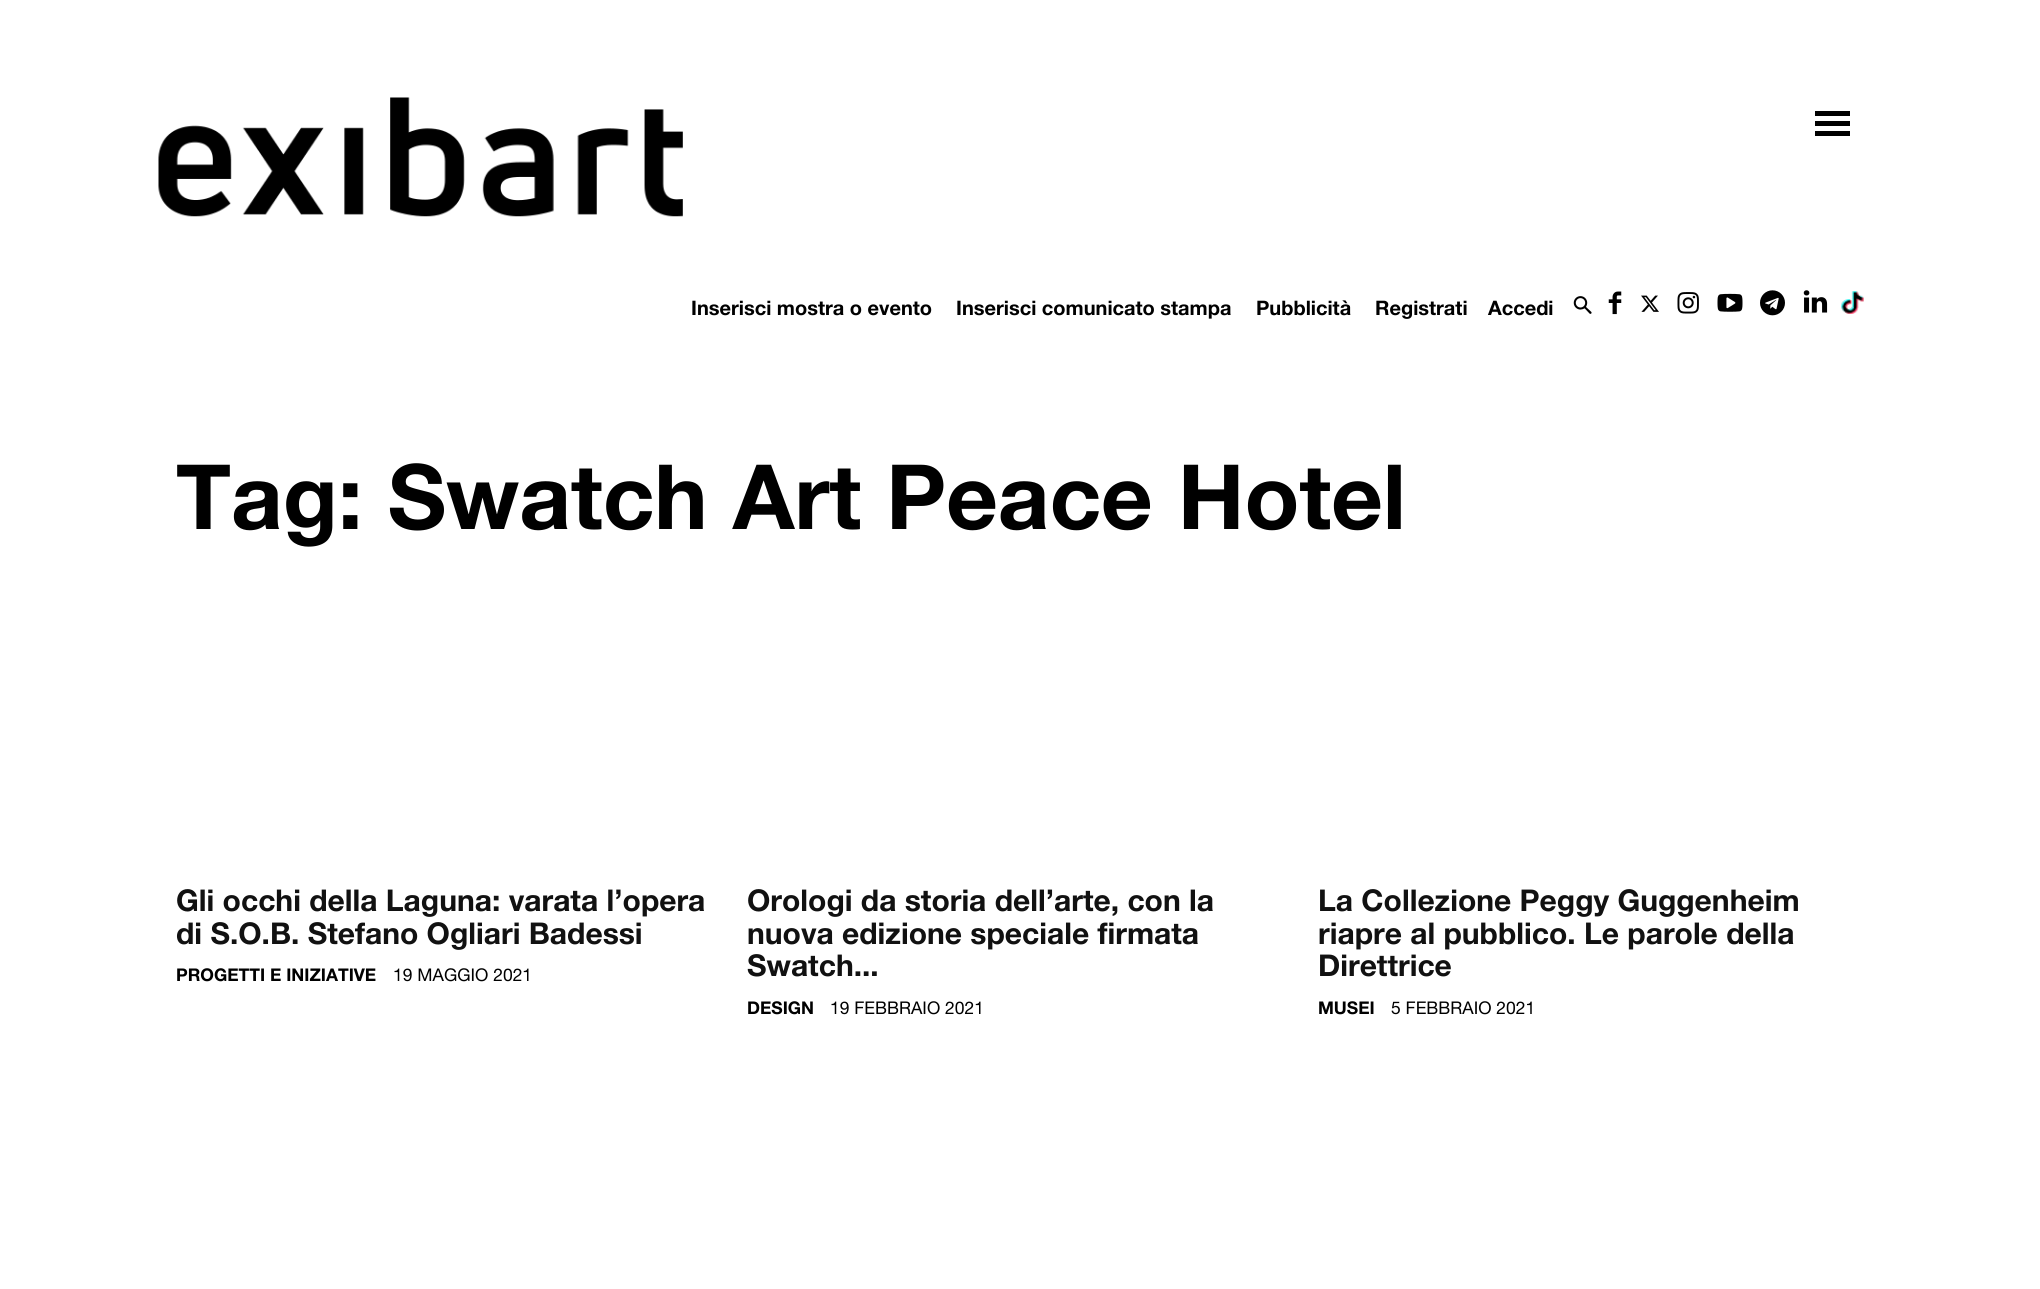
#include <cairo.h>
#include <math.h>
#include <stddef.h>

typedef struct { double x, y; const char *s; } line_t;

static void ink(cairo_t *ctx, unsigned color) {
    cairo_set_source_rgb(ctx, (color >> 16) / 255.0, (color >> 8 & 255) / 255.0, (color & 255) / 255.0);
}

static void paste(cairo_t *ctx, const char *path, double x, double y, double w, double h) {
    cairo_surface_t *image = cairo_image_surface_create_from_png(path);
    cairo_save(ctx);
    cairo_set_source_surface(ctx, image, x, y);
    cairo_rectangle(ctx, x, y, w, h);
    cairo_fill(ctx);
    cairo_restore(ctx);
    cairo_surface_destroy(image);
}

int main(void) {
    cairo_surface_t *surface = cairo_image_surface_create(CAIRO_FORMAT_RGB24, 2040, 1289);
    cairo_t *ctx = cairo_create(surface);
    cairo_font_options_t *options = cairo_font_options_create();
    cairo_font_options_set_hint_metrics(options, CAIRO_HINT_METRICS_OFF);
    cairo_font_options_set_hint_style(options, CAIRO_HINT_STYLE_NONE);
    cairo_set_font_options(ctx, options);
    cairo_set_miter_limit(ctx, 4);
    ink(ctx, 0xFFFFFF);
    cairo_paint(ctx);
    paste(ctx, "media/1.png", 158, 97, 525, 120);
    ink(ctx, 0x000000);
    cairo_new_path(ctx);
    cairo_move_to(ctx, 1850, 116);
    cairo_line_to(ctx, 1850, 111);
    cairo_line_to(ctx, 1815, 111);
    cairo_line_to(ctx, 1815, 116);
    cairo_close_path(ctx);
    cairo_move_to(ctx, 1850, 126);
    cairo_line_to(ctx, 1850, 121);
    cairo_line_to(ctx, 1815, 121);
    cairo_line_to(ctx, 1815, 126);
    cairo_close_path(ctx);
    cairo_move_to(ctx, 1850, 136);
    cairo_line_to(ctx, 1850, 131);
    cairo_line_to(ctx, 1815, 131);
    cairo_line_to(ctx, 1815, 136);
    cairo_close_path(ctx);
    cairo_fill(ctx);
    cairo_select_font_face(ctx, "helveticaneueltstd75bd", CAIRO_FONT_SLANT_NORMAL, CAIRO_FONT_WEIGHT_BOLD);
    cairo_set_font_size(ctx, 20);
    {
        static const line_t items[] = {
            {691, 315, "Inserisci mostra o evento"},
            {956, 315, "Inserisci comunicato stampa"},
            {1256, 315, "Pubblicità"},
            {1375, 315, "Registrati"},
            {1488, 315, "Accedi"},
        };
        for (size_t i = 0; i < sizeof items / sizeof *items; i++) {
            cairo_move_to(ctx, items[i].x, items[i].y);
            cairo_show_text(ctx, items[i].s);
        }
    }
    paste(ctx, "media/2.png", 1573, 296, 19, 18);
    paste(ctx, "media/3.png", 1608, 291, 14, 24);
    paste(ctx, "media/4.png", 1641, 295, 18, 17);
    paste(ctx, "media/5.png", 1677, 292, 22, 22);
    paste(ctx, "media/6.png", 1717, 293, 26, 19);
    paste(ctx, "media/7.png", 1760, 290, 25, 26);
    paste(ctx, "media/8.png", 1803, 290, 25, 23);
    paste(ctx, "media/9.png", 1841, 291, 23, 23);
    cairo_set_font_size(ctx, 90);
    cairo_move_to(ctx, 176, 529);
    cairo_show_text(ctx, "Tag: Swatch Art Peace Hotel");
    cairo_set_font_size(ctx, 30);
    ink(ctx, 0x111111);
    cairo_move_to(ctx, 176, 911);
    cairo_show_text(ctx, "Gli occhi della Laguna: varata l’opera");
    cairo_move_to(ctx, 176, 944);
    cairo_show_text(ctx, "di S.O.B. Stefano Ogliari Badessi");
    cairo_set_font_size(ctx, 17.5);
    ink(ctx, 0x000000);
    cairo_move_to(ctx, 176, 981);
    cairo_show_text(ctx, "PROGETTI E INIZIATIVE");
    cairo_select_font_face(ctx, "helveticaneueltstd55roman", CAIRO_FONT_SLANT_NORMAL, CAIRO_FONT_WEIGHT_NORMAL);
    cairo_move_to(ctx, 393, 981);
    cairo_show_text(ctx, "19 MAGGIO 2021");
    cairo_select_font_face(ctx, "helveticaneueltstd75bd", CAIRO_FONT_SLANT_NORMAL, CAIRO_FONT_WEIGHT_BOLD);
    cairo_set_font_size(ctx, 30);
    ink(ctx, 0x111111);
    {
        static const line_t items[] = {
            {747, 911, "Orologi da storia dell’arte, con la"},
            {747, 944, "nuova edizione speciale firmata"},
            {747, 976, "Swatch..."},
        };
        for (size_t i = 0; i < sizeof items / sizeof *items; i++) {
            cairo_move_to(ctx, items[i].x, items[i].y);
            cairo_show_text(ctx, items[i].s);
        }
    }
    cairo_set_font_size(ctx, 17.5);
    ink(ctx, 0x000000);
    cairo_move_to(ctx, 747, 1014);
    cairo_show_text(ctx, "DESIGN");
    cairo_select_font_face(ctx, "helveticaneueltstd55roman", CAIRO_FONT_SLANT_NORMAL, CAIRO_FONT_WEIGHT_NORMAL);
    cairo_move_to(ctx, 830, 1014);
    cairo_show_text(ctx, "19 FEBBRAIO 2021");
    cairo_select_font_face(ctx, "helveticaneueltstd75bd", CAIRO_FONT_SLANT_NORMAL, CAIRO_FONT_WEIGHT_BOLD);
    cairo_set_font_size(ctx, 30);
    ink(ctx, 0x111111);
    {
        static const line_t items[] = {
            {1318, 911, "La Collezione Peggy Guggenheim"},
            {1318, 944, "riapre al pubblico. Le parole della"},
            {1318, 976, "Direttrice"},
        };
        for (size_t i = 0; i < sizeof items / sizeof *items; i++) {
            cairo_move_to(ctx, items[i].x, items[i].y);
            cairo_show_text(ctx, items[i].s);
        }
    }
    cairo_set_font_size(ctx, 17.5);
    ink(ctx, 0x000000);
    cairo_move_to(ctx, 1318, 1014);
    cairo_show_text(ctx, "MUSEI");
    cairo_select_font_face(ctx, "helveticaneueltstd55roman", CAIRO_FONT_SLANT_NORMAL, CAIRO_FONT_WEIGHT_NORMAL);
    cairo_move_to(ctx, 1391, 1014);
    cairo_show_text(ctx, "5 FEBBRAIO 2021");
    cairo_surface_write_to_png(surface, "image.png");
    cairo_font_options_destroy(options);
    cairo_destroy(ctx);
    cairo_surface_destroy(surface);
    return 0;
}
